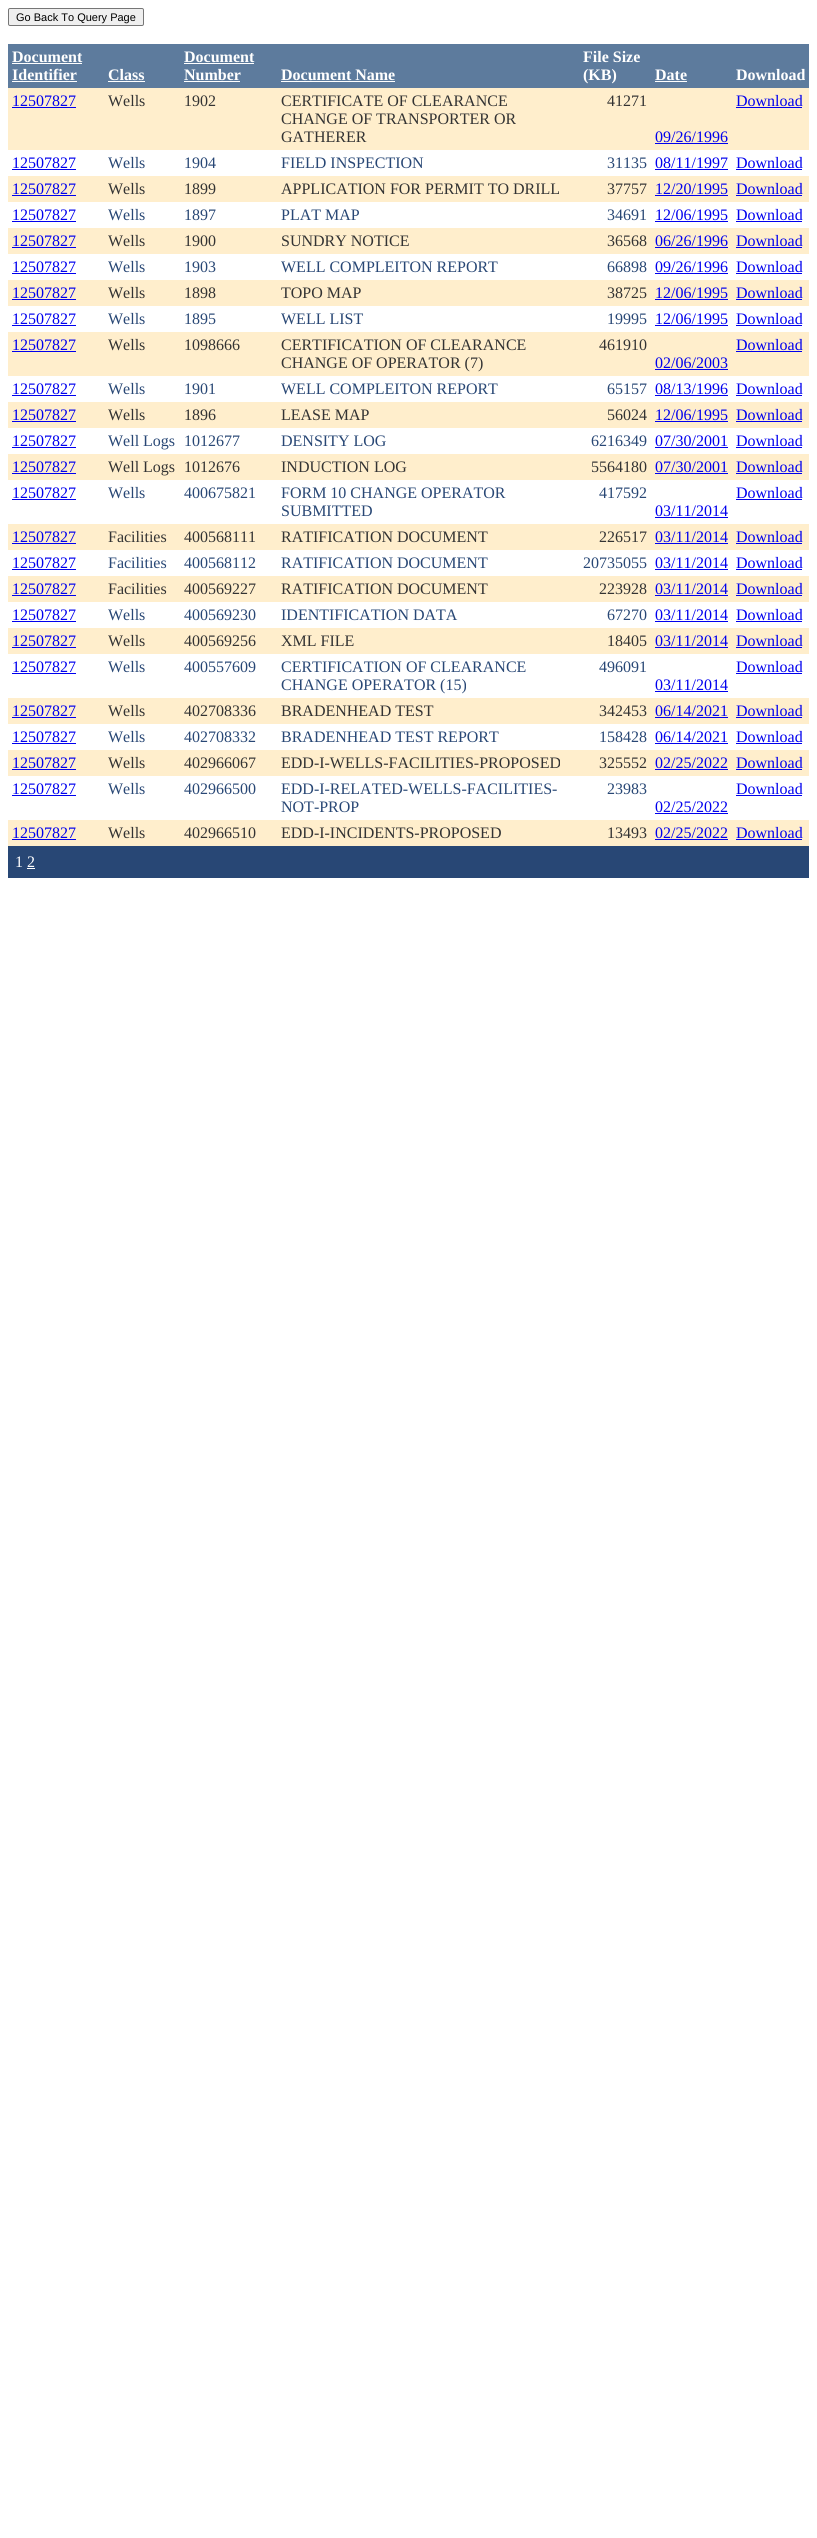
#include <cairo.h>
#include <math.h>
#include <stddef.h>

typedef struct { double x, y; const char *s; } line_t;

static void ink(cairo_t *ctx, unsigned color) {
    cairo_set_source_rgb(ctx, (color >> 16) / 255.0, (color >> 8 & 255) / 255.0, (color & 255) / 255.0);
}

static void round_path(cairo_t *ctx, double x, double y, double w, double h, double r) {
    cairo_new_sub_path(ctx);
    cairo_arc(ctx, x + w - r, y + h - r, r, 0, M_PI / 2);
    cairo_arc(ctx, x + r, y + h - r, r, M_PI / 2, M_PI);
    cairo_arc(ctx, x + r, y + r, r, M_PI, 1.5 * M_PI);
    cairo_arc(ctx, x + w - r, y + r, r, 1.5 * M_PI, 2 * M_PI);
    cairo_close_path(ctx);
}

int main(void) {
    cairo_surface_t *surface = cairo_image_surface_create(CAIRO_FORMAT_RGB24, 817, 2538);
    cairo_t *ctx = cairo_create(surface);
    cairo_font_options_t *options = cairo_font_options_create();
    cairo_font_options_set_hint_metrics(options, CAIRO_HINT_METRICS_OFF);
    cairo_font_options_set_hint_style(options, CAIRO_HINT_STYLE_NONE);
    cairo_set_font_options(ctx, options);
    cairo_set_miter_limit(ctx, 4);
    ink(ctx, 0xFFFFFF);
    cairo_paint(ctx);
    ink(ctx, 0xEFEFEF);
    round_path(ctx, 8.5, 8.5, 135, 17, 1.5);
    cairo_fill_preserve(ctx);
    ink(ctx, 0x767676);
    cairo_set_line_width(ctx, 1);
    cairo_stroke(ctx);
    cairo_select_font_face(ctx, "Liberation Sans", CAIRO_FONT_SLANT_NORMAL, CAIRO_FONT_WEIGHT_NORMAL);
    cairo_set_font_size(ctx, 11);
    ink(ctx, 0x000000);
    cairo_move_to(ctx, 16, 21);
    cairo_show_text(ctx, "Go Back To Query Page");
    ink(ctx, 0x5D7B9D);
    cairo_rectangle(ctx, 8, 44, 801, 44);
    cairo_fill(ctx);
    cairo_select_font_face(ctx, "Liberation Serif", CAIRO_FONT_SLANT_NORMAL, CAIRO_FONT_WEIGHT_BOLD);
    cairo_set_font_size(ctx, 16);
    ink(ctx, 0xFFFFFF);
    cairo_move_to(ctx, 12, 62);
    cairo_show_text(ctx, "Document");
    cairo_rectangle(ctx, 12, 63, 70, 1);
    cairo_fill(ctx);
    cairo_move_to(ctx, 12, 80);
    cairo_show_text(ctx, "Identifier");
    cairo_rectangle(ctx, 12, 81, 65, 1);
    cairo_fill(ctx);
    cairo_move_to(ctx, 108, 80);
    cairo_show_text(ctx, "Class");
    cairo_rectangle(ctx, 108, 81, 37, 1);
    cairo_fill(ctx);
    cairo_move_to(ctx, 184, 62);
    cairo_show_text(ctx, "Document");
    cairo_rectangle(ctx, 184, 63, 70, 1);
    cairo_fill(ctx);
    cairo_move_to(ctx, 184, 80);
    cairo_show_text(ctx, "Number");
    cairo_rectangle(ctx, 184, 81, 56, 1);
    cairo_fill(ctx);
    cairo_move_to(ctx, 281, 80);
    cairo_show_text(ctx, "Document Name");
    cairo_rectangle(ctx, 281, 81, 114, 1);
    cairo_fill(ctx);
    {
        static const line_t items[] = {
            {583, 62, "File Size"},
            {583, 80, "(KB)"},
            {655, 80, "Date"},
        };
        for (size_t i = 0; i < sizeof items / sizeof *items; i++) {
            cairo_move_to(ctx, items[i].x, items[i].y);
            cairo_show_text(ctx, items[i].s);
        }
    }
    cairo_rectangle(ctx, 655, 81, 32, 1);
    cairo_fill(ctx);
    cairo_move_to(ctx, 736, 80);
    cairo_show_text(ctx, "Download");
    ink(ctx, 0xFFEECC);
    cairo_rectangle(ctx, 8, 88, 801, 62);
    cairo_fill(ctx);
    cairo_select_font_face(ctx, "Liberation Serif", CAIRO_FONT_SLANT_NORMAL, CAIRO_FONT_WEIGHT_NORMAL);
    ink(ctx, 0x0000EE);
    cairo_move_to(ctx, 12, 106);
    cairo_show_text(ctx, "12507827");
    cairo_rectangle(ctx, 12, 107, 64, 1);
    cairo_fill(ctx);
    ink(ctx, 0x333333);
    {
        static const line_t items[] = {
            {108, 106, "Wells"},
            {184, 106, "1902"},
            {281, 106, "CERTIFICATE OF CLEARANCE"},
            {281, 124, "CHANGE OF TRANSPORTER OR"},
            {281, 142, "GATHERER"},
            {607, 106, "41271"},
        };
        for (size_t i = 0; i < sizeof items / sizeof *items; i++) {
            cairo_move_to(ctx, items[i].x, items[i].y);
            cairo_show_text(ctx, items[i].s);
        }
    }
    ink(ctx, 0x0000EE);
    cairo_move_to(ctx, 736, 106);
    cairo_show_text(ctx, "Download");
    cairo_rectangle(ctx, 736, 107, 66, 1);
    cairo_fill(ctx);
    cairo_move_to(ctx, 655, 142);
    cairo_show_text(ctx, "09/26/1996");
    cairo_rectangle(ctx, 655, 143, 73, 1);
    cairo_fill(ctx);
    cairo_move_to(ctx, 12, 168);
    cairo_show_text(ctx, "12507827");
    cairo_rectangle(ctx, 12, 169, 64, 1);
    cairo_fill(ctx);
    ink(ctx, 0x284775);
    {
        static const line_t items[] = {
            {108, 168, "Wells"},
            {184, 168, "1904"},
            {281, 168, "FIELD INSPECTION"},
            {607, 168, "31135"},
        };
        for (size_t i = 0; i < sizeof items / sizeof *items; i++) {
            cairo_move_to(ctx, items[i].x, items[i].y);
            cairo_show_text(ctx, items[i].s);
        }
    }
    ink(ctx, 0x0000EE);
    cairo_move_to(ctx, 655, 168);
    cairo_show_text(ctx, "08/11/1997");
    cairo_rectangle(ctx, 655, 169, 73, 1);
    cairo_fill(ctx);
    cairo_move_to(ctx, 736, 168);
    cairo_show_text(ctx, "Download");
    cairo_rectangle(ctx, 736, 169, 66, 1);
    cairo_fill(ctx);
    ink(ctx, 0xFFEECC);
    cairo_rectangle(ctx, 8, 176, 801, 26);
    cairo_fill(ctx);
    ink(ctx, 0x0000EE);
    cairo_move_to(ctx, 12, 194);
    cairo_show_text(ctx, "12507827");
    cairo_rectangle(ctx, 12, 195, 64, 1);
    cairo_fill(ctx);
    ink(ctx, 0x333333);
    {
        static const line_t items[] = {
            {108, 194, "Wells"},
            {184, 194, "1899"},
            {281, 194, "APPLICATION FOR PERMIT TO DRILL"},
            {607, 194, "37757"},
        };
        for (size_t i = 0; i < sizeof items / sizeof *items; i++) {
            cairo_move_to(ctx, items[i].x, items[i].y);
            cairo_show_text(ctx, items[i].s);
        }
    }
    ink(ctx, 0x0000EE);
    cairo_move_to(ctx, 655, 194);
    cairo_show_text(ctx, "12/20/1995");
    cairo_rectangle(ctx, 655, 195, 73, 1);
    cairo_fill(ctx);
    cairo_move_to(ctx, 736, 194);
    cairo_show_text(ctx, "Download");
    cairo_rectangle(ctx, 736, 195, 66, 1);
    cairo_fill(ctx);
    cairo_move_to(ctx, 12, 220);
    cairo_show_text(ctx, "12507827");
    cairo_rectangle(ctx, 12, 221, 64, 1);
    cairo_fill(ctx);
    ink(ctx, 0x284775);
    {
        static const line_t items[] = {
            {108, 220, "Wells"},
            {184, 220, "1897"},
            {281, 220, "PLAT MAP"},
            {607, 220, "34691"},
        };
        for (size_t i = 0; i < sizeof items / sizeof *items; i++) {
            cairo_move_to(ctx, items[i].x, items[i].y);
            cairo_show_text(ctx, items[i].s);
        }
    }
    ink(ctx, 0x0000EE);
    cairo_move_to(ctx, 655, 220);
    cairo_show_text(ctx, "12/06/1995");
    cairo_rectangle(ctx, 655, 221, 73, 1);
    cairo_fill(ctx);
    cairo_move_to(ctx, 736, 220);
    cairo_show_text(ctx, "Download");
    cairo_rectangle(ctx, 736, 221, 66, 1);
    cairo_fill(ctx);
    ink(ctx, 0xFFEECC);
    cairo_rectangle(ctx, 8, 228, 801, 26);
    cairo_fill(ctx);
    ink(ctx, 0x0000EE);
    cairo_move_to(ctx, 12, 246);
    cairo_show_text(ctx, "12507827");
    cairo_rectangle(ctx, 12, 247, 64, 1);
    cairo_fill(ctx);
    ink(ctx, 0x333333);
    {
        static const line_t items[] = {
            {108, 246, "Wells"},
            {184, 246, "1900"},
            {281, 246, "SUNDRY NOTICE"},
            {607, 246, "36568"},
        };
        for (size_t i = 0; i < sizeof items / sizeof *items; i++) {
            cairo_move_to(ctx, items[i].x, items[i].y);
            cairo_show_text(ctx, items[i].s);
        }
    }
    ink(ctx, 0x0000EE);
    cairo_move_to(ctx, 655, 246);
    cairo_show_text(ctx, "06/26/1996");
    cairo_rectangle(ctx, 655, 247, 73, 1);
    cairo_fill(ctx);
    cairo_move_to(ctx, 736, 246);
    cairo_show_text(ctx, "Download");
    cairo_rectangle(ctx, 736, 247, 66, 1);
    cairo_fill(ctx);
    cairo_move_to(ctx, 12, 272);
    cairo_show_text(ctx, "12507827");
    cairo_rectangle(ctx, 12, 273, 64, 1);
    cairo_fill(ctx);
    ink(ctx, 0x284775);
    {
        static const line_t items[] = {
            {108, 272, "Wells"},
            {184, 272, "1903"},
            {281, 272, "WELL COMPLEITON REPORT"},
            {607, 272, "66898"},
        };
        for (size_t i = 0; i < sizeof items / sizeof *items; i++) {
            cairo_move_to(ctx, items[i].x, items[i].y);
            cairo_show_text(ctx, items[i].s);
        }
    }
    ink(ctx, 0x0000EE);
    cairo_move_to(ctx, 655, 272);
    cairo_show_text(ctx, "09/26/1996");
    cairo_rectangle(ctx, 655, 273, 73, 1);
    cairo_fill(ctx);
    cairo_move_to(ctx, 736, 272);
    cairo_show_text(ctx, "Download");
    cairo_rectangle(ctx, 736, 273, 66, 1);
    cairo_fill(ctx);
    ink(ctx, 0xFFEECC);
    cairo_rectangle(ctx, 8, 280, 801, 26);
    cairo_fill(ctx);
    ink(ctx, 0x0000EE);
    cairo_move_to(ctx, 12, 298);
    cairo_show_text(ctx, "12507827");
    cairo_rectangle(ctx, 12, 299, 64, 1);
    cairo_fill(ctx);
    ink(ctx, 0x333333);
    {
        static const line_t items[] = {
            {108, 298, "Wells"},
            {184, 298, "1898"},
            {281, 298, "TOPO MAP"},
            {607, 298, "38725"},
        };
        for (size_t i = 0; i < sizeof items / sizeof *items; i++) {
            cairo_move_to(ctx, items[i].x, items[i].y);
            cairo_show_text(ctx, items[i].s);
        }
    }
    ink(ctx, 0x0000EE);
    cairo_move_to(ctx, 655, 298);
    cairo_show_text(ctx, "12/06/1995");
    cairo_rectangle(ctx, 655, 299, 73, 1);
    cairo_fill(ctx);
    cairo_move_to(ctx, 736, 298);
    cairo_show_text(ctx, "Download");
    cairo_rectangle(ctx, 736, 299, 66, 1);
    cairo_fill(ctx);
    cairo_move_to(ctx, 12, 324);
    cairo_show_text(ctx, "12507827");
    cairo_rectangle(ctx, 12, 325, 64, 1);
    cairo_fill(ctx);
    ink(ctx, 0x284775);
    {
        static const line_t items[] = {
            {108, 324, "Wells"},
            {184, 324, "1895"},
            {281, 324, "WELL LIST"},
            {607, 324, "19995"},
        };
        for (size_t i = 0; i < sizeof items / sizeof *items; i++) {
            cairo_move_to(ctx, items[i].x, items[i].y);
            cairo_show_text(ctx, items[i].s);
        }
    }
    ink(ctx, 0x0000EE);
    cairo_move_to(ctx, 655, 324);
    cairo_show_text(ctx, "12/06/1995");
    cairo_rectangle(ctx, 655, 325, 73, 1);
    cairo_fill(ctx);
    cairo_move_to(ctx, 736, 324);
    cairo_show_text(ctx, "Download");
    cairo_rectangle(ctx, 736, 325, 66, 1);
    cairo_fill(ctx);
    ink(ctx, 0xFFEECC);
    cairo_rectangle(ctx, 8, 332, 801, 44);
    cairo_fill(ctx);
    ink(ctx, 0x0000EE);
    cairo_move_to(ctx, 12, 350);
    cairo_show_text(ctx, "12507827");
    cairo_rectangle(ctx, 12, 351, 64, 1);
    cairo_fill(ctx);
    ink(ctx, 0x333333);
    {
        static const line_t items[] = {
            {108, 350, "Wells"},
            {184, 350, "1098666"},
            {281, 350, "CERTIFICATION OF CLEARANCE"},
            {281, 368, "CHANGE OF OPERATOR (7)"},
            {599, 350, "461910"},
        };
        for (size_t i = 0; i < sizeof items / sizeof *items; i++) {
            cairo_move_to(ctx, items[i].x, items[i].y);
            cairo_show_text(ctx, items[i].s);
        }
    }
    ink(ctx, 0x0000EE);
    cairo_move_to(ctx, 736, 350);
    cairo_show_text(ctx, "Download");
    cairo_rectangle(ctx, 736, 351, 66, 1);
    cairo_fill(ctx);
    cairo_move_to(ctx, 655, 368);
    cairo_show_text(ctx, "02/06/2003");
    cairo_rectangle(ctx, 655, 369, 73, 1);
    cairo_fill(ctx);
    cairo_move_to(ctx, 12, 394);
    cairo_show_text(ctx, "12507827");
    cairo_rectangle(ctx, 12, 395, 64, 1);
    cairo_fill(ctx);
    ink(ctx, 0x284775);
    {
        static const line_t items[] = {
            {108, 394, "Wells"},
            {184, 394, "1901"},
            {281, 394, "WELL COMPLEITON REPORT"},
            {607, 394, "65157"},
        };
        for (size_t i = 0; i < sizeof items / sizeof *items; i++) {
            cairo_move_to(ctx, items[i].x, items[i].y);
            cairo_show_text(ctx, items[i].s);
        }
    }
    ink(ctx, 0x0000EE);
    cairo_move_to(ctx, 655, 394);
    cairo_show_text(ctx, "08/13/1996");
    cairo_rectangle(ctx, 655, 395, 73, 1);
    cairo_fill(ctx);
    cairo_move_to(ctx, 736, 394);
    cairo_show_text(ctx, "Download");
    cairo_rectangle(ctx, 736, 395, 66, 1);
    cairo_fill(ctx);
    ink(ctx, 0xFFEECC);
    cairo_rectangle(ctx, 8, 402, 801, 26);
    cairo_fill(ctx);
    ink(ctx, 0x0000EE);
    cairo_move_to(ctx, 12, 420);
    cairo_show_text(ctx, "12507827");
    cairo_rectangle(ctx, 12, 421, 64, 1);
    cairo_fill(ctx);
    ink(ctx, 0x333333);
    {
        static const line_t items[] = {
            {108, 420, "Wells"},
            {184, 420, "1896"},
            {281, 420, "LEASE MAP"},
            {607, 420, "56024"},
        };
        for (size_t i = 0; i < sizeof items / sizeof *items; i++) {
            cairo_move_to(ctx, items[i].x, items[i].y);
            cairo_show_text(ctx, items[i].s);
        }
    }
    ink(ctx, 0x0000EE);
    cairo_move_to(ctx, 655, 420);
    cairo_show_text(ctx, "12/06/1995");
    cairo_rectangle(ctx, 655, 421, 73, 1);
    cairo_fill(ctx);
    cairo_move_to(ctx, 736, 420);
    cairo_show_text(ctx, "Download");
    cairo_rectangle(ctx, 736, 421, 66, 1);
    cairo_fill(ctx);
    cairo_move_to(ctx, 12, 446);
    cairo_show_text(ctx, "12507827");
    cairo_rectangle(ctx, 12, 447, 64, 1);
    cairo_fill(ctx);
    ink(ctx, 0x284775);
    {
        static const line_t items[] = {
            {108, 446, "Well Logs"},
            {184, 446, "1012677"},
            {281, 446, "DENSITY LOG"},
            {591, 446, "6216349"},
        };
        for (size_t i = 0; i < sizeof items / sizeof *items; i++) {
            cairo_move_to(ctx, items[i].x, items[i].y);
            cairo_show_text(ctx, items[i].s);
        }
    }
    ink(ctx, 0x0000EE);
    cairo_move_to(ctx, 655, 446);
    cairo_show_text(ctx, "07/30/2001");
    cairo_rectangle(ctx, 655, 447, 73, 1);
    cairo_fill(ctx);
    cairo_move_to(ctx, 736, 446);
    cairo_show_text(ctx, "Download");
    cairo_rectangle(ctx, 736, 447, 66, 1);
    cairo_fill(ctx);
    ink(ctx, 0xFFEECC);
    cairo_rectangle(ctx, 8, 454, 801, 26);
    cairo_fill(ctx);
    ink(ctx, 0x0000EE);
    cairo_move_to(ctx, 12, 472);
    cairo_show_text(ctx, "12507827");
    cairo_rectangle(ctx, 12, 473, 64, 1);
    cairo_fill(ctx);
    ink(ctx, 0x333333);
    {
        static const line_t items[] = {
            {108, 472, "Well Logs"},
            {184, 472, "1012676"},
            {281, 472, "INDUCTION LOG"},
            {591, 472, "5564180"},
        };
        for (size_t i = 0; i < sizeof items / sizeof *items; i++) {
            cairo_move_to(ctx, items[i].x, items[i].y);
            cairo_show_text(ctx, items[i].s);
        }
    }
    ink(ctx, 0x0000EE);
    cairo_move_to(ctx, 655, 472);
    cairo_show_text(ctx, "07/30/2001");
    cairo_rectangle(ctx, 655, 473, 73, 1);
    cairo_fill(ctx);
    cairo_move_to(ctx, 736, 472);
    cairo_show_text(ctx, "Download");
    cairo_rectangle(ctx, 736, 473, 66, 1);
    cairo_fill(ctx);
    cairo_move_to(ctx, 12, 498);
    cairo_show_text(ctx, "12507827");
    cairo_rectangle(ctx, 12, 499, 64, 1);
    cairo_fill(ctx);
    ink(ctx, 0x284775);
    {
        static const line_t items[] = {
            {108, 498, "Wells"},
            {184, 498, "400675821"},
            {281, 498, "FORM 10 CHANGE OPERATOR"},
            {281, 516, "SUBMITTED"},
            {599, 498, "417592"},
        };
        for (size_t i = 0; i < sizeof items / sizeof *items; i++) {
            cairo_move_to(ctx, items[i].x, items[i].y);
            cairo_show_text(ctx, items[i].s);
        }
    }
    ink(ctx, 0x0000EE);
    cairo_move_to(ctx, 736, 498);
    cairo_show_text(ctx, "Download");
    cairo_rectangle(ctx, 736, 499, 66, 1);
    cairo_fill(ctx);
    cairo_move_to(ctx, 655, 516);
    cairo_show_text(ctx, "03/11/2014");
    cairo_rectangle(ctx, 655, 517, 73, 1);
    cairo_fill(ctx);
    ink(ctx, 0xFFEECC);
    cairo_rectangle(ctx, 8, 524, 801, 26);
    cairo_fill(ctx);
    ink(ctx, 0x0000EE);
    cairo_move_to(ctx, 12, 542);
    cairo_show_text(ctx, "12507827");
    cairo_rectangle(ctx, 12, 543, 64, 1);
    cairo_fill(ctx);
    ink(ctx, 0x333333);
    {
        static const line_t items[] = {
            {108, 542, "Facilities"},
            {184, 542, "400568111"},
            {281, 542, "RATIFICATION DOCUMENT"},
            {599, 542, "226517"},
        };
        for (size_t i = 0; i < sizeof items / sizeof *items; i++) {
            cairo_move_to(ctx, items[i].x, items[i].y);
            cairo_show_text(ctx, items[i].s);
        }
    }
    ink(ctx, 0x0000EE);
    cairo_move_to(ctx, 655, 542);
    cairo_show_text(ctx, "03/11/2014");
    cairo_rectangle(ctx, 655, 543, 73, 1);
    cairo_fill(ctx);
    cairo_move_to(ctx, 736, 542);
    cairo_show_text(ctx, "Download");
    cairo_rectangle(ctx, 736, 543, 66, 1);
    cairo_fill(ctx);
    cairo_move_to(ctx, 12, 568);
    cairo_show_text(ctx, "12507827");
    cairo_rectangle(ctx, 12, 569, 64, 1);
    cairo_fill(ctx);
    ink(ctx, 0x284775);
    {
        static const line_t items[] = {
            {108, 568, "Facilities"},
            {184, 568, "400568112"},
            {281, 568, "RATIFICATION DOCUMENT"},
            {583, 568, "20735055"},
        };
        for (size_t i = 0; i < sizeof items / sizeof *items; i++) {
            cairo_move_to(ctx, items[i].x, items[i].y);
            cairo_show_text(ctx, items[i].s);
        }
    }
    ink(ctx, 0x0000EE);
    cairo_move_to(ctx, 655, 568);
    cairo_show_text(ctx, "03/11/2014");
    cairo_rectangle(ctx, 655, 569, 73, 1);
    cairo_fill(ctx);
    cairo_move_to(ctx, 736, 568);
    cairo_show_text(ctx, "Download");
    cairo_rectangle(ctx, 736, 569, 66, 1);
    cairo_fill(ctx);
    ink(ctx, 0xFFEECC);
    cairo_rectangle(ctx, 8, 576, 801, 26);
    cairo_fill(ctx);
    ink(ctx, 0x0000EE);
    cairo_move_to(ctx, 12, 594);
    cairo_show_text(ctx, "12507827");
    cairo_rectangle(ctx, 12, 595, 64, 1);
    cairo_fill(ctx);
    ink(ctx, 0x333333);
    {
        static const line_t items[] = {
            {108, 594, "Facilities"},
            {184, 594, "400569227"},
            {281, 594, "RATIFICATION DOCUMENT"},
            {599, 594, "223928"},
        };
        for (size_t i = 0; i < sizeof items / sizeof *items; i++) {
            cairo_move_to(ctx, items[i].x, items[i].y);
            cairo_show_text(ctx, items[i].s);
        }
    }
    ink(ctx, 0x0000EE);
    cairo_move_to(ctx, 655, 594);
    cairo_show_text(ctx, "03/11/2014");
    cairo_rectangle(ctx, 655, 595, 73, 1);
    cairo_fill(ctx);
    cairo_move_to(ctx, 736, 594);
    cairo_show_text(ctx, "Download");
    cairo_rectangle(ctx, 736, 595, 66, 1);
    cairo_fill(ctx);
    cairo_move_to(ctx, 12, 620);
    cairo_show_text(ctx, "12507827");
    cairo_rectangle(ctx, 12, 621, 64, 1);
    cairo_fill(ctx);
    ink(ctx, 0x284775);
    {
        static const line_t items[] = {
            {108, 620, "Wells"},
            {184, 620, "400569230"},
            {281, 620, "IDENTIFICATION DATA"},
            {607, 620, "67270"},
        };
        for (size_t i = 0; i < sizeof items / sizeof *items; i++) {
            cairo_move_to(ctx, items[i].x, items[i].y);
            cairo_show_text(ctx, items[i].s);
        }
    }
    ink(ctx, 0x0000EE);
    cairo_move_to(ctx, 655, 620);
    cairo_show_text(ctx, "03/11/2014");
    cairo_rectangle(ctx, 655, 621, 73, 1);
    cairo_fill(ctx);
    cairo_move_to(ctx, 736, 620);
    cairo_show_text(ctx, "Download");
    cairo_rectangle(ctx, 736, 621, 66, 1);
    cairo_fill(ctx);
    ink(ctx, 0xFFEECC);
    cairo_rectangle(ctx, 8, 628, 801, 26);
    cairo_fill(ctx);
    ink(ctx, 0x0000EE);
    cairo_move_to(ctx, 12, 646);
    cairo_show_text(ctx, "12507827");
    cairo_rectangle(ctx, 12, 647, 64, 1);
    cairo_fill(ctx);
    ink(ctx, 0x333333);
    {
        static const line_t items[] = {
            {108, 646, "Wells"},
            {184, 646, "400569256"},
            {281, 646, "XML FILE"},
            {607, 646, "18405"},
        };
        for (size_t i = 0; i < sizeof items / sizeof *items; i++) {
            cairo_move_to(ctx, items[i].x, items[i].y);
            cairo_show_text(ctx, items[i].s);
        }
    }
    ink(ctx, 0x0000EE);
    cairo_move_to(ctx, 655, 646);
    cairo_show_text(ctx, "03/11/2014");
    cairo_rectangle(ctx, 655, 647, 73, 1);
    cairo_fill(ctx);
    cairo_move_to(ctx, 736, 646);
    cairo_show_text(ctx, "Download");
    cairo_rectangle(ctx, 736, 647, 66, 1);
    cairo_fill(ctx);
    cairo_move_to(ctx, 12, 672);
    cairo_show_text(ctx, "12507827");
    cairo_rectangle(ctx, 12, 673, 64, 1);
    cairo_fill(ctx);
    ink(ctx, 0x284775);
    {
        static const line_t items[] = {
            {108, 672, "Wells"},
            {184, 672, "400557609"},
            {281, 672, "CERTIFICATION OF CLEARANCE"},
            {281, 690, "CHANGE OPERATOR (15)"},
            {599, 672, "496091"},
        };
        for (size_t i = 0; i < sizeof items / sizeof *items; i++) {
            cairo_move_to(ctx, items[i].x, items[i].y);
            cairo_show_text(ctx, items[i].s);
        }
    }
    ink(ctx, 0x0000EE);
    cairo_move_to(ctx, 736, 672);
    cairo_show_text(ctx, "Download");
    cairo_rectangle(ctx, 736, 673, 66, 1);
    cairo_fill(ctx);
    cairo_move_to(ctx, 655, 690);
    cairo_show_text(ctx, "03/11/2014");
    cairo_rectangle(ctx, 655, 691, 73, 1);
    cairo_fill(ctx);
    ink(ctx, 0xFFEECC);
    cairo_rectangle(ctx, 8, 698, 801, 26);
    cairo_fill(ctx);
    ink(ctx, 0x0000EE);
    cairo_move_to(ctx, 12, 716);
    cairo_show_text(ctx, "12507827");
    cairo_rectangle(ctx, 12, 717, 64, 1);
    cairo_fill(ctx);
    ink(ctx, 0x333333);
    {
        static const line_t items[] = {
            {108, 716, "Wells"},
            {184, 716, "402708336"},
            {281, 716, "BRADENHEAD TEST"},
            {599, 716, "342453"},
        };
        for (size_t i = 0; i < sizeof items / sizeof *items; i++) {
            cairo_move_to(ctx, items[i].x, items[i].y);
            cairo_show_text(ctx, items[i].s);
        }
    }
    ink(ctx, 0x0000EE);
    cairo_move_to(ctx, 655, 716);
    cairo_show_text(ctx, "06/14/2021");
    cairo_rectangle(ctx, 655, 717, 73, 1);
    cairo_fill(ctx);
    cairo_move_to(ctx, 736, 716);
    cairo_show_text(ctx, "Download");
    cairo_rectangle(ctx, 736, 717, 66, 1);
    cairo_fill(ctx);
    cairo_move_to(ctx, 12, 742);
    cairo_show_text(ctx, "12507827");
    cairo_rectangle(ctx, 12, 743, 64, 1);
    cairo_fill(ctx);
    ink(ctx, 0x284775);
    {
        static const line_t items[] = {
            {108, 742, "Wells"},
            {184, 742, "402708332"},
            {281, 742, "BRADENHEAD TEST REPORT"},
            {599, 742, "158428"},
        };
        for (size_t i = 0; i < sizeof items / sizeof *items; i++) {
            cairo_move_to(ctx, items[i].x, items[i].y);
            cairo_show_text(ctx, items[i].s);
        }
    }
    ink(ctx, 0x0000EE);
    cairo_move_to(ctx, 655, 742);
    cairo_show_text(ctx, "06/14/2021");
    cairo_rectangle(ctx, 655, 743, 73, 1);
    cairo_fill(ctx);
    cairo_move_to(ctx, 736, 742);
    cairo_show_text(ctx, "Download");
    cairo_rectangle(ctx, 736, 743, 66, 1);
    cairo_fill(ctx);
    ink(ctx, 0xFFEECC);
    cairo_rectangle(ctx, 8, 750, 801, 26);
    cairo_fill(ctx);
    ink(ctx, 0x0000EE);
    cairo_move_to(ctx, 12, 768);
    cairo_show_text(ctx, "12507827");
    cairo_rectangle(ctx, 12, 769, 64, 1);
    cairo_fill(ctx);
    ink(ctx, 0x333333);
    {
        static const line_t items[] = {
            {108, 768, "Wells"},
            {184, 768, "402966067"},
            {281, 768, "EDD-I-WELLS-FACILITIES-PROPOSED"},
            {599, 768, "325552"},
        };
        for (size_t i = 0; i < sizeof items / sizeof *items; i++) {
            cairo_move_to(ctx, items[i].x, items[i].y);
            cairo_show_text(ctx, items[i].s);
        }
    }
    ink(ctx, 0x0000EE);
    cairo_move_to(ctx, 655, 768);
    cairo_show_text(ctx, "02/25/2022");
    cairo_rectangle(ctx, 655, 769, 73, 1);
    cairo_fill(ctx);
    cairo_move_to(ctx, 736, 768);
    cairo_show_text(ctx, "Download");
    cairo_rectangle(ctx, 736, 769, 66, 1);
    cairo_fill(ctx);
    cairo_move_to(ctx, 12, 794);
    cairo_show_text(ctx, "12507827");
    cairo_rectangle(ctx, 12, 795, 64, 1);
    cairo_fill(ctx);
    ink(ctx, 0x284775);
    {
        static const line_t items[] = {
            {108, 794, "Wells"},
            {184, 794, "402966500"},
            {281, 794, "EDD-I-RELATED-WELLS-FACILITIES-"},
            {281, 812, "NOT-PROP"},
            {607, 794, "23983"},
        };
        for (size_t i = 0; i < sizeof items / sizeof *items; i++) {
            cairo_move_to(ctx, items[i].x, items[i].y);
            cairo_show_text(ctx, items[i].s);
        }
    }
    ink(ctx, 0x0000EE);
    cairo_move_to(ctx, 736, 794);
    cairo_show_text(ctx, "Download");
    cairo_rectangle(ctx, 736, 795, 66, 1);
    cairo_fill(ctx);
    cairo_move_to(ctx, 655, 812);
    cairo_show_text(ctx, "02/25/2022");
    cairo_rectangle(ctx, 655, 813, 73, 1);
    cairo_fill(ctx);
    ink(ctx, 0xFFEECC);
    cairo_rectangle(ctx, 8, 820, 801, 26);
    cairo_fill(ctx);
    ink(ctx, 0x0000EE);
    cairo_move_to(ctx, 12, 838);
    cairo_show_text(ctx, "12507827");
    cairo_rectangle(ctx, 12, 839, 64, 1);
    cairo_fill(ctx);
    ink(ctx, 0x333333);
    {
        static const line_t items[] = {
            {108, 838, "Wells"},
            {184, 838, "402966510"},
            {281, 838, "EDD-I-INCIDENTS-PROPOSED"},
            {607, 838, "13493"},
        };
        for (size_t i = 0; i < sizeof items / sizeof *items; i++) {
            cairo_move_to(ctx, items[i].x, items[i].y);
            cairo_show_text(ctx, items[i].s);
        }
    }
    ink(ctx, 0x0000EE);
    cairo_move_to(ctx, 655, 838);
    cairo_show_text(ctx, "02/25/2022");
    cairo_rectangle(ctx, 655, 839, 73, 1);
    cairo_fill(ctx);
    cairo_move_to(ctx, 736, 838);
    cairo_show_text(ctx, "Download");
    cairo_rectangle(ctx, 736, 839, 66, 1);
    cairo_fill(ctx);
    ink(ctx, 0x284775);
    cairo_rectangle(ctx, 8, 846, 801, 32);
    cairo_fill(ctx);
    ink(ctx, 0xFFFFFF);
    cairo_move_to(ctx, 15, 867);
    cairo_show_text(ctx, "1 2");
    cairo_rectangle(ctx, 27, 868, 8, 1);
    cairo_fill(ctx);
    cairo_surface_write_to_png(surface, "image.png");
    cairo_font_options_destroy(options);
    cairo_destroy(ctx);
    cairo_surface_destroy(surface);
    return 0;
}
